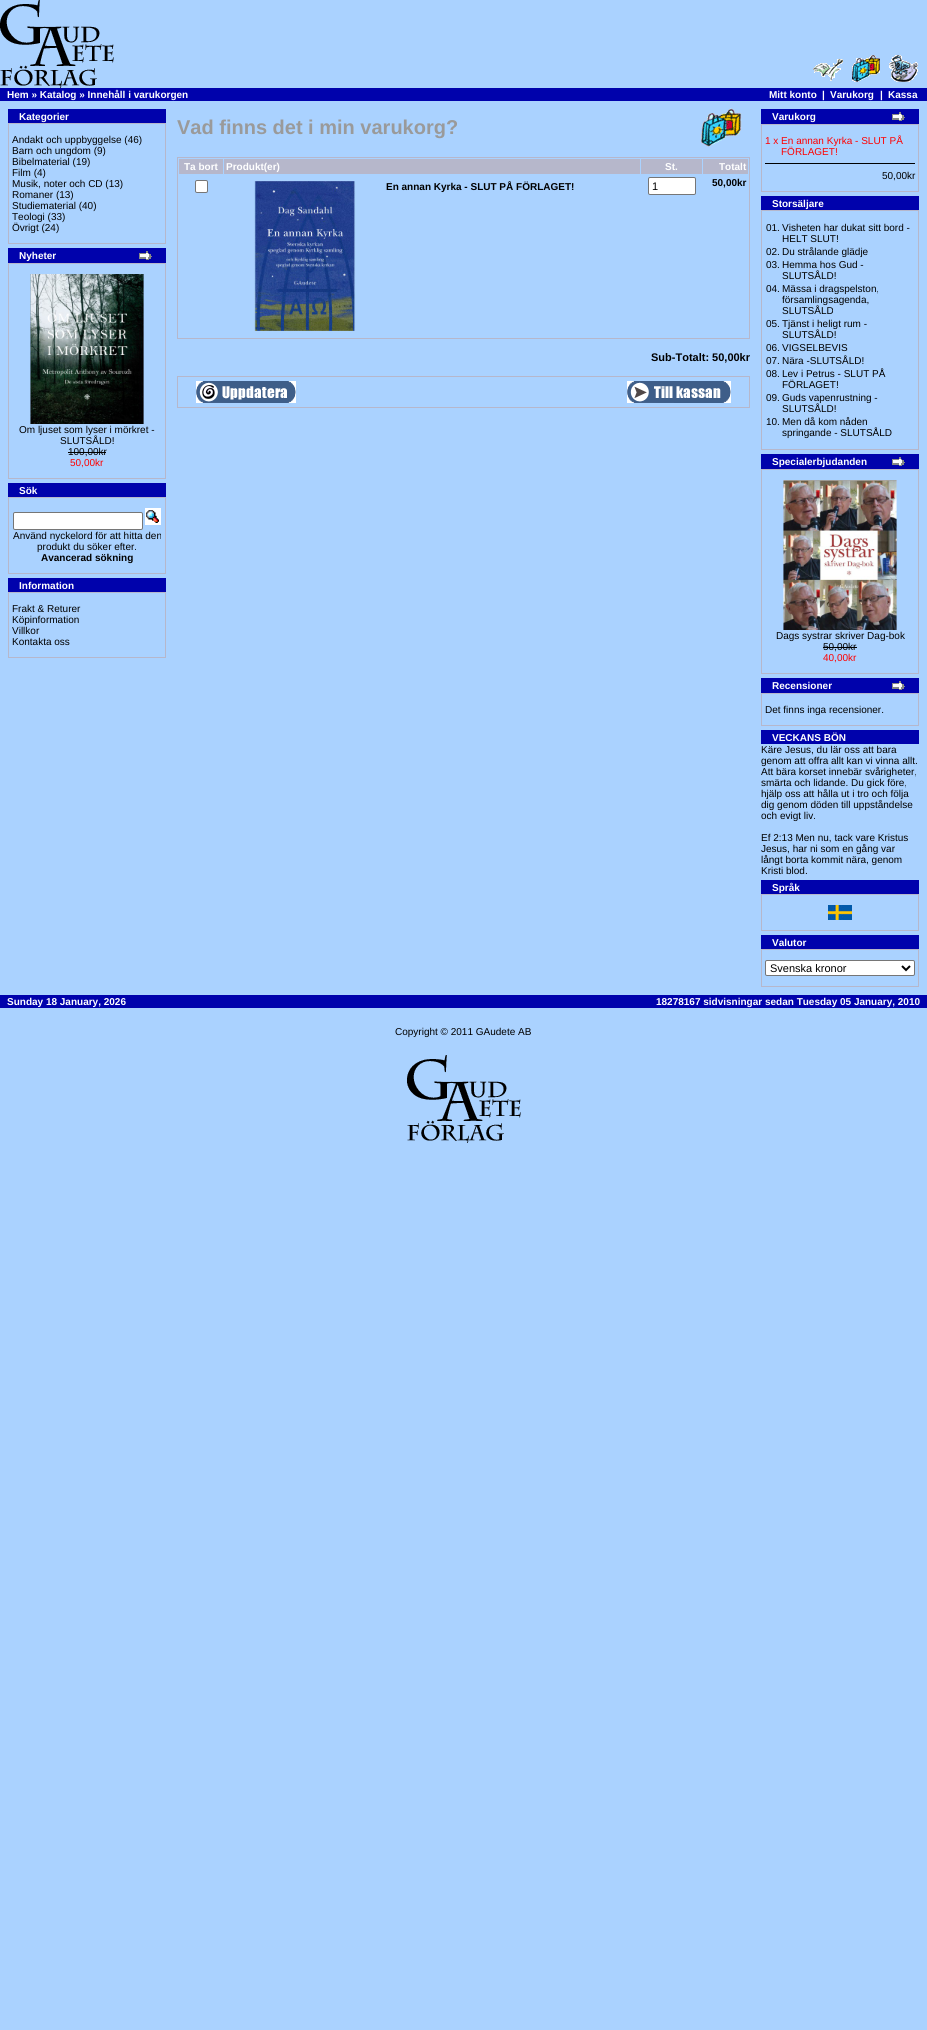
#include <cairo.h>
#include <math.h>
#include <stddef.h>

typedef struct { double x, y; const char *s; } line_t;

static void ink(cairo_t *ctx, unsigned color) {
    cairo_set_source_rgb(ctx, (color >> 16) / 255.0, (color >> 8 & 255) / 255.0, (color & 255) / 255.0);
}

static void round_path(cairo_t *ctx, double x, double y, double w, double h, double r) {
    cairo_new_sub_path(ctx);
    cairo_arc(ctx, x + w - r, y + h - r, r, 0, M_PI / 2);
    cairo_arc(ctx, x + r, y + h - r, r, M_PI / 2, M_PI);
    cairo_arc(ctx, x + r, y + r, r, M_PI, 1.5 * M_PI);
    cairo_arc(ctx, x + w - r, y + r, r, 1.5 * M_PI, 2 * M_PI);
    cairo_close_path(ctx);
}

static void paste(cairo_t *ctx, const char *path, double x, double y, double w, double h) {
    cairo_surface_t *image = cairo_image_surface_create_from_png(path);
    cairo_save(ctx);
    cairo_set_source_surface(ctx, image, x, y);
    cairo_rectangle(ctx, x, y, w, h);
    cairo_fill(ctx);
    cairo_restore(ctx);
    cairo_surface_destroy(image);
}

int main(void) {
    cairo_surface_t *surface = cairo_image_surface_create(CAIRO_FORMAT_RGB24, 927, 2030);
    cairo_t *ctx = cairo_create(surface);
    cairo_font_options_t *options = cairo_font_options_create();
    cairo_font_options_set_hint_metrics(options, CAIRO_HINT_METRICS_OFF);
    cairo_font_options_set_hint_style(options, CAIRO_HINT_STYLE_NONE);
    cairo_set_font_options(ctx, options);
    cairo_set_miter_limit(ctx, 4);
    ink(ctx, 0xAAD2FF);
    cairo_paint(ctx);
    paste(ctx, "media/1.png", 0, 0, 114, 88);
    paste(ctx, "media/2.png", 813, 59, 30, 22);
    paste(ctx, "media/3.png", 852, 55, 28, 27);
    paste(ctx, "media/4.png", 889, 55, 29, 27);
    ink(ctx, 0x0002AC);
    cairo_rectangle(ctx, 0, 88, 927, 13);
    cairo_fill(ctx);
    cairo_select_font_face(ctx, "Liberation Sans", CAIRO_FONT_SLANT_NORMAL, CAIRO_FONT_WEIGHT_BOLD);
    cairo_set_font_size(ctx, 10);
    ink(ctx, 0xFFFFFF);
    {
        static const line_t items[] = {
            {7, 98, "Hem » Katalog » Innehåll i varukorgen"},
            {769, 98, "Mitt konto"},
            {822, 98, "|"},
            {830, 98, "Varukorg"},
            {880, 98, "|"},
            {888, 98, "Kassa"},
        };
        for (size_t i = 0; i < sizeof items / sizeof *items; i++) {
            cairo_move_to(ctx, items[i].x, items[i].y);
            cairo_show_text(ctx, items[i].s);
        }
    }
    ink(ctx, 0x0002AC);
    cairo_rectangle(ctx, 8, 109, 158, 14);
    cairo_fill(ctx);
    ink(ctx, 0xFFFFFF);
    cairo_move_to(ctx, 19, 120);
    cairo_show_text(ctx, "Kategorier");
    ink(ctx, 0xB6B7CB);
    cairo_rectangle(ctx, 8, 123, 158, 121);
    cairo_fill(ctx);
    ink(ctx, 0xAAD2FF);
    cairo_rectangle(ctx, 9, 124, 156, 119);
    cairo_fill(ctx);
    cairo_select_font_face(ctx, "Liberation Sans", CAIRO_FONT_SLANT_NORMAL, CAIRO_FONT_WEIGHT_NORMAL);
    ink(ctx, 0x000000);
    {
        static const line_t items[] = {
            {12, 143, "Andakt och uppbyggelse (46)"},
            {12, 154, "Barn och ungdom (9)"},
            {12, 165, "Bibelmaterial (19)"},
            {12, 176, "Film (4)"},
            {12, 187, "Musik, noter och CD (13)"},
            {12, 198, "Romaner (13)"},
            {12, 209, "Studiematerial (40)"},
            {12, 220, "Teologi (33)"},
            {12, 231, "Övrigt (24)"},
        };
        for (size_t i = 0; i < sizeof items / sizeof *items; i++) {
            cairo_move_to(ctx, items[i].x, items[i].y);
            cairo_show_text(ctx, items[i].s);
        }
    }
    ink(ctx, 0x0002AC);
    cairo_rectangle(ctx, 8, 248, 158, 15);
    cairo_fill(ctx);
    cairo_select_font_face(ctx, "Liberation Sans", CAIRO_FONT_SLANT_NORMAL, CAIRO_FONT_WEIGHT_BOLD);
    ink(ctx, 0xFFFFFF);
    cairo_move_to(ctx, 19, 259);
    cairo_show_text(ctx, "Nyheter");
    paste(ctx, "media/5.png", 139, 251, 13, 9);
    ink(ctx, 0xB6B7CB);
    cairo_rectangle(ctx, 8, 263, 158, 216);
    cairo_fill(ctx);
    ink(ctx, 0xAAD2FF);
    cairo_rectangle(ctx, 9, 264, 156, 214);
    cairo_fill(ctx);
    paste(ctx, "media/6.png", 30, 274, 114, 150);
    cairo_select_font_face(ctx, "Liberation Sans", CAIRO_FONT_SLANT_NORMAL, CAIRO_FONT_WEIGHT_NORMAL);
    ink(ctx, 0x000000);
    {
        static const line_t items[] = {
            {19, 433, "Om ljuset som lyser i mörkret -"},
            {60, 444, "SLUTSÅLD!"},
            {68, 455, "100,00kr"},
        };
        for (size_t i = 0; i < sizeof items / sizeof *items; i++) {
            cairo_move_to(ctx, items[i].x, items[i].y);
            cairo_show_text(ctx, items[i].s);
        }
    }
    cairo_rectangle(ctx, 68, 452, 38, 1);
    cairo_fill(ctx);
    ink(ctx, 0xFF0000);
    cairo_move_to(ctx, 70, 466);
    cairo_show_text(ctx, "50,00kr");
    ink(ctx, 0x0002AC);
    cairo_rectangle(ctx, 8, 483, 158, 14);
    cairo_fill(ctx);
    cairo_select_font_face(ctx, "Liberation Sans", CAIRO_FONT_SLANT_NORMAL, CAIRO_FONT_WEIGHT_BOLD);
    ink(ctx, 0xFFFFFF);
    cairo_move_to(ctx, 19, 494);
    cairo_show_text(ctx, "Sök");
    ink(ctx, 0xB6B7CB);
    cairo_rectangle(ctx, 8, 497, 158, 77);
    cairo_fill(ctx);
    ink(ctx, 0xAAD2FF);
    cairo_rectangle(ctx, 9, 498, 156, 75);
    cairo_fill(ctx);
    ink(ctx, 0xFFFFFF);
    round_path(ctx, 13.5, 512.5, 129, 17, 1.5);
    cairo_fill_preserve(ctx);
    ink(ctx, 0x767676);
    cairo_set_line_width(ctx, 1);
    cairo_stroke(ctx);
    paste(ctx, "media/7.png", 145, 508, 16, 17);
    cairo_select_font_face(ctx, "Liberation Sans", CAIRO_FONT_SLANT_NORMAL, CAIRO_FONT_WEIGHT_NORMAL);
    ink(ctx, 0x000000);
    cairo_move_to(ctx, 13, 539);
    cairo_show_text(ctx, "Använd nyckelord för att hitta den");
    cairo_move_to(ctx, 37, 550);
    cairo_show_text(ctx, "produkt du söker efter.");
    cairo_select_font_face(ctx, "Liberation Sans", CAIRO_FONT_SLANT_NORMAL, CAIRO_FONT_WEIGHT_BOLD);
    cairo_move_to(ctx, 41, 561);
    cairo_show_text(ctx, "Avancerad sökning");
    ink(ctx, 0x0002AC);
    cairo_rectangle(ctx, 8, 578, 158, 14);
    cairo_fill(ctx);
    ink(ctx, 0xFFFFFF);
    cairo_move_to(ctx, 19, 589);
    cairo_show_text(ctx, "Information");
    ink(ctx, 0xB6B7CB);
    cairo_rectangle(ctx, 8, 592, 158, 66);
    cairo_fill(ctx);
    ink(ctx, 0xAAD2FF);
    cairo_rectangle(ctx, 9, 593, 156, 64);
    cairo_fill(ctx);
    cairo_select_font_face(ctx, "Liberation Sans", CAIRO_FONT_SLANT_NORMAL, CAIRO_FONT_WEIGHT_NORMAL);
    ink(ctx, 0x000000);
    {
        static const line_t items[] = {
            {12, 612, "Frakt & Returer"},
            {12, 623, "Köpinformation"},
            {12, 634, "Villkor"},
            {12, 645, "Kontakta oss"},
        };
        for (size_t i = 0; i < sizeof items / sizeof *items; i++) {
            cairo_move_to(ctx, items[i].x, items[i].y);
            cairo_show_text(ctx, items[i].s);
        }
    }
    cairo_select_font_face(ctx, "Liberation Sans", CAIRO_FONT_SLANT_NORMAL, CAIRO_FONT_WEIGHT_BOLD);
    cairo_set_font_size(ctx, 20);
    ink(ctx, 0x9A9A9A);
    cairo_move_to(ctx, 177, 134);
    cairo_show_text(ctx, "Vad finns det i min varukorg?");
    paste(ctx, "media/8.png", 701, 108, 41, 39);
    cairo_rectangle(ctx, 177.5, 157.5, 572, 181);
    ink(ctx, 0xB6B7CB);
    cairo_stroke(ctx);
    cairo_rectangle(ctx, 179, 159, 44, 15);
    cairo_fill(ctx);
    cairo_set_font_size(ctx, 10);
    ink(ctx, 0xFFFFFF);
    cairo_move_to(ctx, 184, 170);
    cairo_show_text(ctx, "Ta bort");
    ink(ctx, 0xB6B7CB);
    cairo_rectangle(ctx, 224, 159, 416, 15);
    cairo_fill(ctx);
    ink(ctx, 0xFFFFFF);
    cairo_move_to(ctx, 226, 170);
    cairo_show_text(ctx, "Produkt(er)");
    ink(ctx, 0xB6B7CB);
    cairo_rectangle(ctx, 641, 159, 61, 15);
    cairo_fill(ctx);
    ink(ctx, 0xFFFFFF);
    cairo_move_to(ctx, 665, 170);
    cairo_show_text(ctx, "St.");
    ink(ctx, 0xB6B7CB);
    cairo_rectangle(ctx, 703, 159, 45, 15);
    cairo_fill(ctx);
    ink(ctx, 0xFFFFFF);
    cairo_move_to(ctx, 719, 170);
    cairo_show_text(ctx, "Totalt");
    round_path(ctx, 195.5, 180.5, 12, 12, 1.5);
    cairo_fill_preserve(ctx);
    ink(ctx, 0x767676);
    cairo_stroke(ctx);
    paste(ctx, "media/9.png", 254, 181, 102, 150);
    ink(ctx, 0x000000);
    cairo_move_to(ctx, 386, 190);
    cairo_show_text(ctx, "En annan Kyrka - SLUT PÅ FÖRLAGET!");
    ink(ctx, 0xFFFFFF);
    round_path(ctx, 648.5, 177.5, 47, 17, 1.5);
    cairo_fill_preserve(ctx);
    ink(ctx, 0x767676);
    cairo_stroke(ctx);
    cairo_select_font_face(ctx, "Liberation Sans", CAIRO_FONT_SLANT_NORMAL, CAIRO_FONT_WEIGHT_NORMAL);
    cairo_set_font_size(ctx, 11);
    ink(ctx, 0x000000);
    cairo_move_to(ctx, 652, 190);
    cairo_show_text(ctx, "1");
    cairo_select_font_face(ctx, "Liberation Sans", CAIRO_FONT_SLANT_NORMAL, CAIRO_FONT_WEIGHT_BOLD);
    cairo_set_font_size(ctx, 10);
    cairo_move_to(ctx, 712, 186);
    cairo_show_text(ctx, "50,00kr");
    cairo_set_font_size(ctx, 11);
    cairo_move_to(ctx, 651, 361);
    cairo_show_text(ctx, "Sub-Totalt: 50,00kr");
    ink(ctx, 0xB6B7CB);
    cairo_rectangle(ctx, 177, 376, 573, 32);
    cairo_fill(ctx);
    ink(ctx, 0xAAD2FF);
    cairo_rectangle(ctx, 178, 377, 571, 30);
    cairo_fill(ctx);
    paste(ctx, "media/10.png", 196, 381, 100, 22);
    paste(ctx, "media/11.png", 627, 381, 104, 22);
    ink(ctx, 0x0002AC);
    cairo_rectangle(ctx, 761, 109, 158, 15);
    cairo_fill(ctx);
    cairo_set_font_size(ctx, 10);
    ink(ctx, 0xFFFFFF);
    cairo_move_to(ctx, 772, 120);
    cairo_show_text(ctx, "Varukorg");
    paste(ctx, "media/5.png", 892, 112, 13, 9);
    ink(ctx, 0xB6B7CB);
    cairo_rectangle(ctx, 761, 124, 158, 68);
    cairo_fill(ctx);
    ink(ctx, 0xAAD2FF);
    cairo_rectangle(ctx, 762, 125, 156, 66);
    cairo_fill(ctx);
    cairo_select_font_face(ctx, "Liberation Sans", CAIRO_FONT_SLANT_NORMAL, CAIRO_FONT_WEIGHT_NORMAL);
    ink(ctx, 0xFF0000);
    cairo_move_to(ctx, 765, 144);
    cairo_show_text(ctx, "1 x En annan Kyrka - SLUT PÅ");
    cairo_move_to(ctx, 781, 155);
    cairo_show_text(ctx, "FÖRLAGET!");
    ink(ctx, 0x000000);
    cairo_rectangle(ctx, 765, 163, 150, 1);
    cairo_fill(ctx);
    cairo_move_to(ctx, 882, 179);
    cairo_show_text(ctx, "50,00kr");
    ink(ctx, 0x0002AC);
    cairo_rectangle(ctx, 761, 196, 158, 14);
    cairo_fill(ctx);
    cairo_select_font_face(ctx, "Liberation Sans", CAIRO_FONT_SLANT_NORMAL, CAIRO_FONT_WEIGHT_BOLD);
    ink(ctx, 0xFFFFFF);
    cairo_move_to(ctx, 772, 207);
    cairo_show_text(ctx, "Storsäljare");
    ink(ctx, 0xB6B7CB);
    cairo_rectangle(ctx, 761, 210, 158, 240);
    cairo_fill(ctx);
    ink(ctx, 0xAAD2FF);
    cairo_rectangle(ctx, 762, 211, 156, 238);
    cairo_fill(ctx);
    cairo_select_font_face(ctx, "Liberation Sans", CAIRO_FONT_SLANT_NORMAL, CAIRO_FONT_WEIGHT_NORMAL);
    ink(ctx, 0x000000);
    {
        static const line_t items[] = {
            {766, 231, "01."},
            {782, 231, "Visheten har dukat sitt bord -"},
            {782, 242, "HELT SLUT!"},
            {766, 255, "02."},
            {782, 255, "Du strålande glädje"},
            {766, 268, "03."},
            {782, 268, "Hemma hos Gud -"},
            {782, 279, "SLUTSÅLD!"},
            {766, 292, "04."},
            {782, 292, "Mässa i dragspelston,"},
            {782, 303, "församlingsagenda,"},
            {782, 314, "SLUTSÅLD"},
            {766, 327, "05."},
            {782, 327, "Tjänst i heligt rum -"},
            {782, 338, "SLUTSÅLD!"},
            {766, 351, "06."},
            {782, 351, "VIGSELBEVIS"},
            {766, 364, "07."},
            {782, 364, "Nära -SLUTSÅLD!"},
            {766, 377, "08."},
            {782, 377, "Lev i Petrus - SLUT PÅ"},
            {782, 388, "FÖRLAGET!"},
            {766, 401, "09."},
            {782, 401, "Guds vapenrustning -"},
            {782, 412, "SLUTSÅLD!"},
            {766, 425, "10."},
            {782, 425, "Men då kom nåden"},
            {782, 436, "springande - SLUTSÅLD"},
        };
        for (size_t i = 0; i < sizeof items / sizeof *items; i++) {
            cairo_move_to(ctx, items[i].x, items[i].y);
            cairo_show_text(ctx, items[i].s);
        }
    }
    ink(ctx, 0x0002AC);
    cairo_rectangle(ctx, 761, 454, 158, 15);
    cairo_fill(ctx);
    cairo_select_font_face(ctx, "Liberation Sans", CAIRO_FONT_SLANT_NORMAL, CAIRO_FONT_WEIGHT_BOLD);
    ink(ctx, 0xFFFFFF);
    cairo_move_to(ctx, 772, 465);
    cairo_show_text(ctx, "Specialerbjudanden");
    paste(ctx, "media/5.png", 892, 457, 13, 9);
    ink(ctx, 0xB6B7CB);
    cairo_rectangle(ctx, 761, 469, 158, 205);
    cairo_fill(ctx);
    ink(ctx, 0xAAD2FF);
    cairo_rectangle(ctx, 762, 470, 156, 203);
    cairo_fill(ctx);
    paste(ctx, "media/12.png", 783, 480, 114, 150);
    cairo_select_font_face(ctx, "Liberation Sans", CAIRO_FONT_SLANT_NORMAL, CAIRO_FONT_WEIGHT_NORMAL);
    ink(ctx, 0x000000);
    cairo_move_to(ctx, 776, 639);
    cairo_show_text(ctx, "Dags systrar skriver Dag-bok");
    cairo_move_to(ctx, 823, 650);
    cairo_show_text(ctx, "50,00kr");
    cairo_rectangle(ctx, 823, 647, 34, 1);
    cairo_fill(ctx);
    ink(ctx, 0xFF0000);
    cairo_move_to(ctx, 823, 661);
    cairo_show_text(ctx, "40,00kr");
    ink(ctx, 0x0002AC);
    cairo_rectangle(ctx, 761, 678, 158, 15);
    cairo_fill(ctx);
    cairo_select_font_face(ctx, "Liberation Sans", CAIRO_FONT_SLANT_NORMAL, CAIRO_FONT_WEIGHT_BOLD);
    ink(ctx, 0xFFFFFF);
    cairo_move_to(ctx, 772, 689);
    cairo_show_text(ctx, "Recensioner");
    paste(ctx, "media/5.png", 892, 681, 13, 9);
    ink(ctx, 0xB6B7CB);
    cairo_rectangle(ctx, 761, 693, 158, 33);
    cairo_fill(ctx);
    ink(ctx, 0xAAD2FF);
    cairo_rectangle(ctx, 762, 694, 156, 31);
    cairo_fill(ctx);
    cairo_select_font_face(ctx, "Liberation Sans", CAIRO_FONT_SLANT_NORMAL, CAIRO_FONT_WEIGHT_NORMAL);
    ink(ctx, 0x000000);
    cairo_move_to(ctx, 765, 713);
    cairo_show_text(ctx, "Det finns inga recensioner.");
    ink(ctx, 0x0002AC);
    cairo_rectangle(ctx, 761, 730, 158, 14);
    cairo_fill(ctx);
    cairo_select_font_face(ctx, "Liberation Sans", CAIRO_FONT_SLANT_NORMAL, CAIRO_FONT_WEIGHT_BOLD);
    ink(ctx, 0xFFFFFF);
    cairo_move_to(ctx, 772, 741);
    cairo_show_text(ctx, "VECKANS BÖN");
    cairo_select_font_face(ctx, "Liberation Sans", CAIRO_FONT_SLANT_NORMAL, CAIRO_FONT_WEIGHT_NORMAL);
    ink(ctx, 0x000000);
    {
        static const line_t items[] = {
            {761, 753, "Käre Jesus, du lär oss att bara"},
            {761, 764, "genom att offra allt kan vi vinna allt."},
            {761, 775, "Att bära korset innebär svårigheter,"},
            {761, 786, "smärta och lidande. Du gick före,"},
            {761, 797, "hjälp oss att hålla ut i tro och följa"},
            {761, 808, "dig genom döden till uppståndelse"},
            {761, 819, "och evigt liv."},
            {761, 841, "Ef 2:13 Men nu, tack vare Kristus"},
            {761, 852, "Jesus, har ni som en gång var"},
            {761, 863, "långt borta kommit nära, genom"},
            {761, 874, "Kristi blod."},
        };
        for (size_t i = 0; i < sizeof items / sizeof *items; i++) {
            cairo_move_to(ctx, items[i].x, items[i].y);
            cairo_show_text(ctx, items[i].s);
        }
    }
    ink(ctx, 0x0002AC);
    cairo_rectangle(ctx, 761, 880, 158, 14);
    cairo_fill(ctx);
    cairo_select_font_face(ctx, "Liberation Sans", CAIRO_FONT_SLANT_NORMAL, CAIRO_FONT_WEIGHT_BOLD);
    ink(ctx, 0xFFFFFF);
    cairo_move_to(ctx, 772, 891);
    cairo_show_text(ctx, "Språk");
    ink(ctx, 0xB6B7CB);
    cairo_rectangle(ctx, 761, 894, 158, 37);
    cairo_fill(ctx);
    ink(ctx, 0xAAD2FF);
    cairo_rectangle(ctx, 762, 895, 156, 35);
    cairo_fill(ctx);
    paste(ctx, "media/13.png", 828, 905, 24, 15);
    ink(ctx, 0x0002AC);
    cairo_rectangle(ctx, 761, 935, 158, 14);
    cairo_fill(ctx);
    ink(ctx, 0xFFFFFF);
    cairo_move_to(ctx, 772, 946);
    cairo_show_text(ctx, "Valutor");
    ink(ctx, 0xB6B7CB);
    cairo_rectangle(ctx, 761, 949, 158, 38);
    cairo_fill(ctx);
    ink(ctx, 0xAAD2FF);
    cairo_rectangle(ctx, 762, 950, 156, 36);
    cairo_fill(ctx);
    ink(ctx, 0xFFFFFF);
    round_path(ctx, 765.5, 960.5, 149, 15, 1.5);
    cairo_fill_preserve(ctx);
    ink(ctx, 0x767676);
    cairo_stroke(ctx);
    cairo_new_path(ctx);
    cairo_move_to(ctx, 902, 966);
    cairo_line_to(ctx, 906, 970);
    cairo_line_to(ctx, 910, 966);
    ink(ctx, 0x000000);
    cairo_set_line_width(ctx, 2);
    cairo_stroke(ctx);
    cairo_select_font_face(ctx, "Liberation Sans", CAIRO_FONT_SLANT_NORMAL, CAIRO_FONT_WEIGHT_NORMAL);
    cairo_set_font_size(ctx, 11);
    cairo_move_to(ctx, 770, 972);
    cairo_show_text(ctx, "Svenska kronor");
    ink(ctx, 0x0002AC);
    cairo_rectangle(ctx, 0, 995, 927, 13);
    cairo_fill(ctx);
    cairo_select_font_face(ctx, "Liberation Sans", CAIRO_FONT_SLANT_NORMAL, CAIRO_FONT_WEIGHT_BOLD);
    cairo_set_font_size(ctx, 10);
    ink(ctx, 0xFFFFFF);
    cairo_move_to(ctx, 7, 1005);
    cairo_show_text(ctx, "Sunday 18 January, 2026");
    cairo_move_to(ctx, 656, 1005);
    cairo_show_text(ctx, "18278167 sidvisningar sedan Tuesday 05 January, 2010");
    cairo_select_font_face(ctx, "Liberation Sans", CAIRO_FONT_SLANT_NORMAL, CAIRO_FONT_WEIGHT_NORMAL);
    ink(ctx, 0x000000);
    cairo_move_to(ctx, 395, 1035);
    cairo_show_text(ctx, "Copyright © 2011 GAudete AB");
    paste(ctx, "media/1.png", 407, 1055, 114, 88);
    cairo_surface_write_to_png(surface, "image.png");
    cairo_font_options_destroy(options);
    cairo_destroy(ctx);
    cairo_surface_destroy(surface);
    return 0;
}
